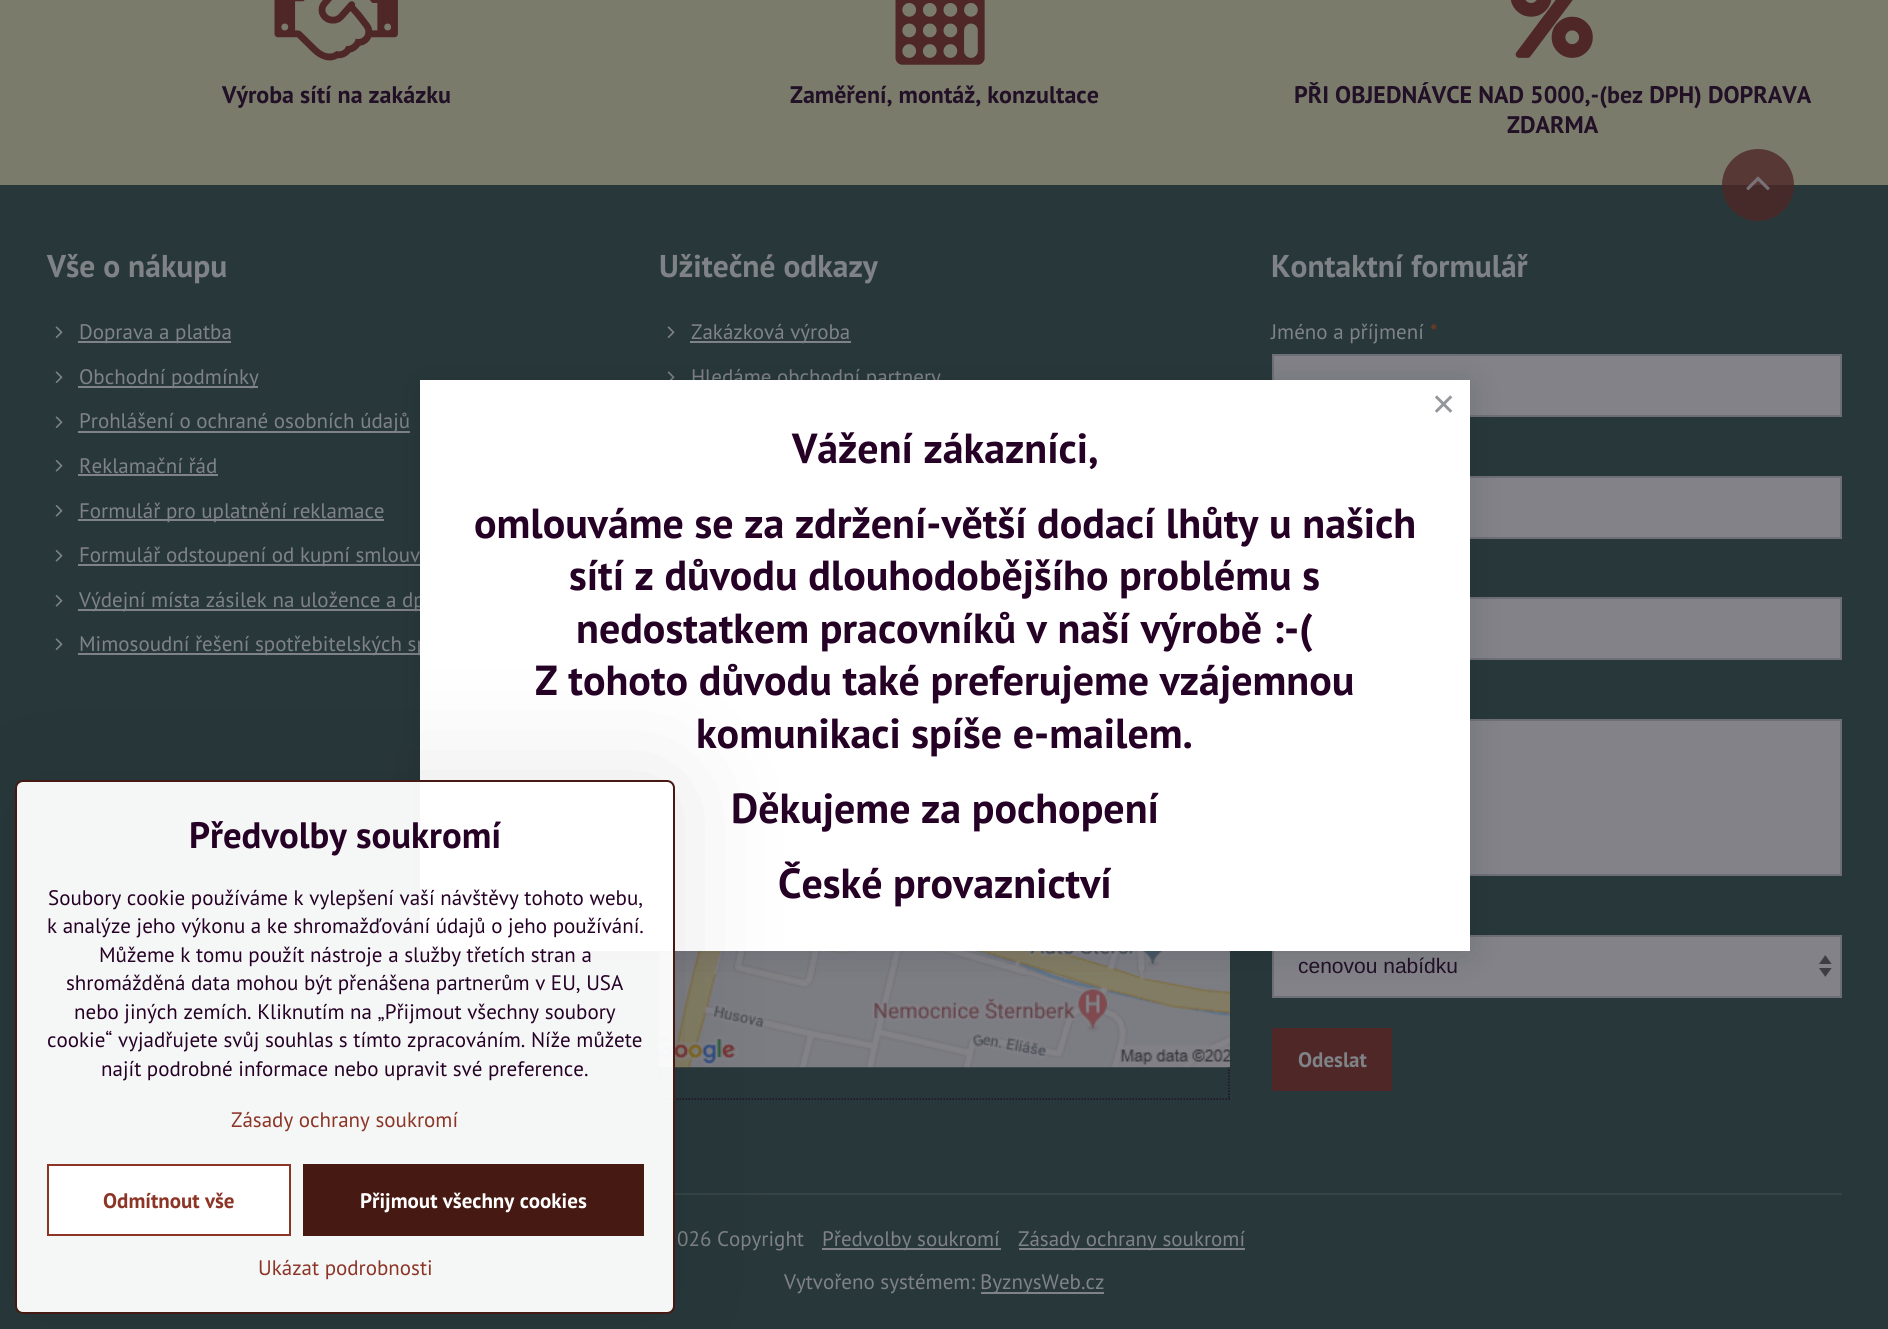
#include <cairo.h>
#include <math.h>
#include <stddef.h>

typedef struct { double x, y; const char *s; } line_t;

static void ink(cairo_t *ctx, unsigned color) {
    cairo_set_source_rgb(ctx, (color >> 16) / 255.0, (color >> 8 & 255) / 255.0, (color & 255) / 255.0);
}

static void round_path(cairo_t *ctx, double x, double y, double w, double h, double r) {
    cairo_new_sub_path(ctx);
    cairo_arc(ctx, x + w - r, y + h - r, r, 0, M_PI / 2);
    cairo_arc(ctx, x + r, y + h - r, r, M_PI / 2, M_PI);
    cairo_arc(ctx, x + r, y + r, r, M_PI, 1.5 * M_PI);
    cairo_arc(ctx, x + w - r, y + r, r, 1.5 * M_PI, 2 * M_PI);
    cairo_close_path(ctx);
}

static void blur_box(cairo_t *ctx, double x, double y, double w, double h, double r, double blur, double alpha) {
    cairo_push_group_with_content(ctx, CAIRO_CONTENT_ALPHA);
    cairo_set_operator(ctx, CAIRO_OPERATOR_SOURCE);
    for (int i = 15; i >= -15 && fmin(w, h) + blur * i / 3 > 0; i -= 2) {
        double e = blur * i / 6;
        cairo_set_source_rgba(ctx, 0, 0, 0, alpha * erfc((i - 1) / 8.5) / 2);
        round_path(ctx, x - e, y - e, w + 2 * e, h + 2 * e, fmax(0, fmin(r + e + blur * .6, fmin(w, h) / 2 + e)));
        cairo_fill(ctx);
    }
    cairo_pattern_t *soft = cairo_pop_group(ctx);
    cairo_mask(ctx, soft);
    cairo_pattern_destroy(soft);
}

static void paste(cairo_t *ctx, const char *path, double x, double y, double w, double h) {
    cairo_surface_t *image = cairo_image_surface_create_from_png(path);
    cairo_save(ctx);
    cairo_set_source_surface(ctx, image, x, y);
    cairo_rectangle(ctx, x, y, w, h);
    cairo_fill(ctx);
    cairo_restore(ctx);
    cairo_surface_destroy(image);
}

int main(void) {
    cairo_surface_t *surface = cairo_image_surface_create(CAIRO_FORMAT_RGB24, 1888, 1329);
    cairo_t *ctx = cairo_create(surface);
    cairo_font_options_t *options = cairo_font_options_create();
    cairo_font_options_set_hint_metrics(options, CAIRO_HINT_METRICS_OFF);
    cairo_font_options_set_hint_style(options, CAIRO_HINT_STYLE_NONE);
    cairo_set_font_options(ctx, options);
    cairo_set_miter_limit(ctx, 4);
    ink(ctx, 0x7B7B6C);
    cairo_paint(ctx);
    paste(ctx, "media/1.png", 274, 0, 124, 61);
    cairo_select_font_face(ctx, "PT Sans", CAIRO_FONT_SLANT_NORMAL, CAIRO_FONT_WEIGHT_BOLD);
    cairo_set_font_size(ctx, 24);
    ink(ctx, 0x211026);
    cairo_move_to(ctx, 222, 103);
    cairo_show_text(ctx, "Výroba sítí na zakázku");
    paste(ctx, "media/2.png", 895, 0, 90, 65);
    cairo_move_to(ctx, 790, 103);
    cairo_show_text(ctx, "Zaměření, montáž, konzultace");
    paste(ctx, "media/3.png", 1510, 0, 83, 58);
    cairo_move_to(ctx, 1294, 103);
    cairo_show_text(ctx, "PŘI OBJEDNÁVCE NAD 5000,-(bez DPH) DOPRAVA");
    cairo_move_to(ctx, 1507, 133);
    cairo_show_text(ctx, "ZDARMA");
    ink(ctx, 0x28383A);
    cairo_rectangle(ctx, 0, 185, 1888, 1144);
    cairo_fill(ctx);
    cairo_set_source_rgba(ctx, 0.306, 0.153, 0.149, 0.8);
    cairo_arc(ctx, 1758, 185, 36, 0, 2 * M_PI);
    cairo_fill(ctx);
    paste(ctx, "media/4.png", 1746, 176, 24, 15);
    cairo_set_font_size(ctx, 31.5);
    ink(ctx, 0x7F8287);
    cairo_move_to(ctx, 47, 277);
    cairo_show_text(ctx, "Vše o nákupu");
    paste(ctx, "media/5.png", 55, 326, 8, 12);
    cairo_rectangle(ctx, 78, 341, 153, 2);
    cairo_fill(ctx);
    cairo_select_font_face(ctx, "PT Sans", CAIRO_FONT_SLANT_NORMAL, CAIRO_FONT_WEIGHT_NORMAL);
    cairo_set_font_size(ctx, 21);
    cairo_move_to(ctx, 79, 339);
    cairo_show_text(ctx, "Doprava a platba");
    paste(ctx, "media/5.png", 55, 371, 8, 12);
    cairo_rectangle(ctx, 78, 386, 180, 2);
    cairo_fill(ctx);
    cairo_move_to(ctx, 79, 384);
    cairo_show_text(ctx, "Obchodní podmínky");
    paste(ctx, "media/5.png", 55, 416, 8, 12);
    cairo_rectangle(ctx, 78, 431, 332, 2);
    cairo_fill(ctx);
    cairo_move_to(ctx, 79, 428);
    cairo_show_text(ctx, "Prohlášení o ochrané osobních údajů");
    paste(ctx, "media/6.png", 55, 460, 8, 12);
    cairo_move_to(ctx, 79, 473);
    cairo_show_text(ctx, "Reklamační řád");
    cairo_rectangle(ctx, 78, 474, 140, 2);
    cairo_fill(ctx);
    paste(ctx, "media/6.png", 55, 505, 8, 12);
    cairo_rectangle(ctx, 78, 519, 306, 2);
    cairo_fill(ctx);
    cairo_move_to(ctx, 79, 518);
    cairo_show_text(ctx, "Formulář pro uplatnění reklamace");
    paste(ctx, "media/6.png", 55, 550, 8, 12);
    cairo_rectangle(ctx, 78, 564, 342, 2);
    cairo_fill(ctx);
    cairo_move_to(ctx, 79, 562);
    cairo_show_text(ctx, "Formulář odstoupení od kupní smlouv");
    paste(ctx, "media/6.png", 55, 595, 8, 12);
    cairo_rectangle(ctx, 78, 609, 342, 2);
    cairo_fill(ctx);
    cairo_move_to(ctx, 79, 607);
    cairo_show_text(ctx, "Výdejní místa zásilek na uložence a dp");
    paste(ctx, "media/5.png", 55, 638, 8, 12);
    cairo_rectangle(ctx, 78, 653, 342, 2);
    cairo_fill(ctx);
    cairo_move_to(ctx, 79, 651);
    cairo_show_text(ctx, "Mimosoudní řešení spotřebitelských sp");
    cairo_select_font_face(ctx, "PT Sans", CAIRO_FONT_SLANT_NORMAL, CAIRO_FONT_WEIGHT_BOLD);
    cairo_set_font_size(ctx, 31.5);
    cairo_move_to(ctx, 659, 277);
    cairo_show_text(ctx, "Užitečné odkazy");
    paste(ctx, "media/5.png", 667, 326, 8, 12);
    cairo_rectangle(ctx, 690, 341, 161, 2);
    cairo_fill(ctx);
    cairo_select_font_face(ctx, "PT Sans", CAIRO_FONT_SLANT_NORMAL, CAIRO_FONT_WEIGHT_NORMAL);
    cairo_set_font_size(ctx, 21);
    cairo_move_to(ctx, 691, 339);
    cairo_show_text(ctx, "Zakázková výroba");
    paste(ctx, "media/7.png", 667, 371, 8, 9);
    cairo_move_to(ctx, 691, 384);
    cairo_show_text(ctx, "Hledáme obchodní partnery");
    cairo_new_path(ctx);
    cairo_move_to(ctx, 1229, 499.5);
    cairo_line_to(ctx, 1229, 1099.5);
    ink(ctx, 0x211026);
    cairo_set_line_width(ctx, 1.5);
    cairo_set_dash(ctx, (double[]){1.5, 1.5}, 2, 0);
    cairo_stroke(ctx);
    cairo_new_path(ctx);
    cairo_move_to(ctx, 658.5, 1099);
    cairo_line_to(ctx, 1230, 1099);
    cairo_stroke(ctx);
    cairo_new_path(ctx);
    cairo_move_to(ctx, 659, 499.5);
    cairo_line_to(ctx, 659, 1099.5);
    cairo_stroke(ctx);
    paste(ctx, "media/8.png", 658, 951, 572, 117);
    cairo_select_font_face(ctx, "PT Sans", CAIRO_FONT_SLANT_NORMAL, CAIRO_FONT_WEIGHT_BOLD);
    cairo_set_font_size(ctx, 31.5);
    ink(ctx, 0x7F8287);
    cairo_move_to(ctx, 1271, 277);
    cairo_show_text(ctx, "Kontaktní formulář");
    cairo_select_font_face(ctx, "PT Sans", CAIRO_FONT_SLANT_NORMAL, CAIRO_FONT_WEIGHT_NORMAL);
    cairo_set_font_size(ctx, 21);
    cairo_move_to(ctx, 1271, 339);
    cairo_show_text(ctx, "Jméno a příjmení");
    ink(ctx, 0x7B3A1C);
    cairo_move_to(ctx, 1430, 339);
    cairo_show_text(ctx, "*");
    ink(ctx, 0x828288);
    cairo_rectangle(ctx, 1273, 355, 568, 61);
    cairo_fill_preserve(ctx);
    ink(ctx, 0x6E6F76);
    cairo_set_line_width(ctx, 2);
    cairo_set_dash(ctx, NULL, 0, 0);
    cairo_stroke(ctx);
    ink(ctx, 0x828288);
    cairo_rectangle(ctx, 1470, 478, 370, 59);
    cairo_fill(ctx);
    cairo_rectangle(ctx, 1273, 477, 568, 61);
    ink(ctx, 0x6E6F76);
    cairo_stroke(ctx);
    ink(ctx, 0x828288);
    cairo_rectangle(ctx, 1470, 599, 370, 59);
    cairo_fill(ctx);
    cairo_rectangle(ctx, 1273, 598, 568, 61);
    ink(ctx, 0x6E6F76);
    cairo_stroke(ctx);
    ink(ctx, 0x828288);
    cairo_rectangle(ctx, 1470, 721, 370, 153);
    cairo_fill(ctx);
    cairo_rectangle(ctx, 1273, 720, 568, 155);
    ink(ctx, 0x6E6F76);
    cairo_stroke(ctx);
    ink(ctx, 0x828288);
    cairo_rectangle(ctx, 1274, 937, 566, 59);
    cairo_fill(ctx);
    paste(ctx, "media/9.png", 1819, 955, 13, 22);
    cairo_rectangle(ctx, 1273, 936, 568, 61);
    ink(ctx, 0x6E6F76);
    cairo_stroke(ctx);
    cairo_select_font_face(ctx, "Liberation Sans", CAIRO_FONT_SLANT_NORMAL, CAIRO_FONT_WEIGHT_NORMAL);
    ink(ctx, 0x211026);
    cairo_move_to(ctx, 1298, 973);
    cairo_show_text(ctx, "cenovou nabídku");
    ink(ctx, 0x4E2726);
    cairo_rectangle(ctx, 1272, 1028, 120, 63);
    cairo_fill(ctx);
    cairo_select_font_face(ctx, "PT Sans", CAIRO_FONT_SLANT_NORMAL, CAIRO_FONT_WEIGHT_BOLD);
    ink(ctx, 0x7F8287);
    cairo_move_to(ctx, 1298, 1067);
    cairo_show_text(ctx, "Odeslat");
    ink(ctx, 0x354446);
    cairo_rectangle(ctx, 291, 1193, 1551, 2);
    cairo_fill(ctx);
    cairo_select_font_face(ctx, "PT Sans", CAIRO_FONT_SLANT_NORMAL, CAIRO_FONT_WEIGHT_NORMAL);
    ink(ctx, 0x7F8287);
    cairo_move_to(ctx, 677, 1246);
    cairo_show_text(ctx, "026 Copyright");
    cairo_rectangle(ctx, 822, 1248, 179, 2);
    cairo_fill(ctx);
    cairo_move_to(ctx, 822, 1246);
    cairo_show_text(ctx, "Předvolby soukromí");
    cairo_rectangle(ctx, 1019, 1248, 226, 2);
    cairo_fill(ctx);
    cairo_move_to(ctx, 1018, 1246);
    cairo_show_text(ctx, "Zásady ochrany soukromí");
    cairo_move_to(ctx, 784, 1289);
    cairo_show_text(ctx, "Vytvořeno systémem:");
    cairo_rectangle(ctx, 981, 1292, 123, 2);
    cairo_fill(ctx);
    cairo_move_to(ctx, 980, 1289);
    cairo_show_text(ctx, "ByznysWeb.cz");
    ink(ctx, 0x000014);
    blur_box(ctx, 423, 386, 1044, 565, 0, 18, 0.15);
    ink(ctx, 0xFFFFFF);
    cairo_rectangle(ctx, 420, 380, 1050, 571);
    cairo_fill(ctx);
    cairo_select_font_face(ctx, "DejaVu Sans", CAIRO_FONT_SLANT_NORMAL, CAIRO_FONT_WEIGHT_NORMAL);
    cairo_set_font_size(ctx, 30);
    ink(ctx, 0x95979C);
    cairo_move_to(ctx, 1431, 415);
    cairo_show_text(ctx, "✕");
    cairo_select_font_face(ctx, "PT Sans", CAIRO_FONT_SLANT_NORMAL, CAIRO_FONT_WEIGHT_BOLD);
    cairo_set_font_size(ctx, 42);
    ink(ctx, 0x260126);
    {
        static const line_t items[] = {
            {792, 463, "Vážení zákazníci,"},
            {474, 538, "omlouváme se za zdržení-větší dodací lhůty u našich"},
            {569, 590, "sítí z důvodu dlouhodobějšího problému s"},
            {576, 643, "nedostatkem pracovníků v naší výrobě :-("},
            {535, 695, "Z tohoto důvodu také preferujeme vzájemnou"},
            {696, 748, "komunikaci spíše e-mailem."},
            {731, 823, "Děkujeme za pochopení"},
            {778, 898, "České provaznictví"},
        };
        for (size_t i = 0; i < sizeof items / sizeof *items; i++) {
            cairo_move_to(ctx, items[i].x, items[i].y);
            cairo_show_text(ctx, items[i].s);
        }
    }
    cairo_save(ctx);
    cairo_set_fill_rule(ctx, CAIRO_FILL_RULE_EVEN_ODD);
    cairo_new_path(ctx);
    cairo_move_to(ctx, 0, 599);
    cairo_line_to(ctx, 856, 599);
    cairo_line_to(ctx, 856, 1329);
    cairo_line_to(ctx, 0, 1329);
    cairo_close_path(ctx);
    cairo_move_to(ctx, 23, 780);
    cairo_line_to(ctx, 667, 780);
    cairo_curve_to(ctx, 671.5, 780, 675, 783.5, 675, 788);
    cairo_line_to(ctx, 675, 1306);
    cairo_curve_to(ctx, 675, 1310.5, 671.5, 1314, 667, 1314);
    cairo_line_to(ctx, 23, 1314);
    cairo_curve_to(ctx, 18.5, 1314, 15, 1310.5, 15, 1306);
    cairo_line_to(ctx, 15, 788);
    cairo_curve_to(ctx, 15, 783.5, 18.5, 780, 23, 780);
    cairo_close_path(ctx);
    cairo_clip(ctx);
    ink(ctx, 0x000000);
    blur_box(ctx, 15, 780, 660, 534, 8, 60, 0.1);
    cairo_restore(ctx);
    cairo_set_source_rgba(ctx, 1, 1, 1, 0.95);
    round_path(ctx, 16, 781, 658, 532, 7);
    cairo_fill_preserve(ctx);
    ink(ctx, 0x461A13);
    cairo_stroke(ctx);
    cairo_set_font_size(ctx, 36.75);
    ink(ctx, 0x260126);
    cairo_move_to(ctx, 189, 848);
    cairo_show_text(ctx, "Předvolby soukromí");
    cairo_select_font_face(ctx, "PT Sans", CAIRO_FONT_SLANT_NORMAL, CAIRO_FONT_WEIGHT_NORMAL);
    cairo_set_font_size(ctx, 21);
    {
        static const line_t items[] = {
            {48, 905, "Soubory cookie používáme k vylepšení vaší návštěvy tohoto webu,"},
            {47, 933, "k analýze jeho výkonu a ke shromažďování údajů o jeho používání."},
            {99, 962, "Můžeme k tomu použít nástroje a služby třetích stran a"},
            {66, 990, "shromážděná data mohou být přenášena partnerům v EU, USA"},
            {74, 1019, "nebo jiných zemích. Kliknutím na „Přijmout všechny soubory"},
            {47, 1047, "cookie“ vyjadřujete svůj souhlas s tímto zpracováním. Níže můžete"},
            {101, 1076, "najít podrobné informace nebo upravit své preference."},
        };
        for (size_t i = 0; i < sizeof items / sizeof *items; i++) {
            cairo_move_to(ctx, items[i].x, items[i].y);
            cairo_show_text(ctx, items[i].s);
        }
    }
    ink(ctx, 0x8C3527);
    cairo_move_to(ctx, 231, 1127);
    cairo_show_text(ctx, "Zásady ochrany soukromí");
    ink(ctx, 0xFFFFFF);
    cairo_rectangle(ctx, 48, 1165, 242, 70);
    cairo_fill_preserve(ctx);
    ink(ctx, 0x8C3527);
    cairo_stroke(ctx);
    cairo_select_font_face(ctx, "PT Sans", CAIRO_FONT_SLANT_NORMAL, CAIRO_FONT_WEIGHT_BOLD);
    cairo_move_to(ctx, 103, 1208);
    cairo_show_text(ctx, "Odmítnout vše");
    ink(ctx, 0x461A13);
    cairo_rectangle(ctx, 303, 1164, 341, 72);
    cairo_fill(ctx);
    ink(ctx, 0xFFFFFF);
    cairo_move_to(ctx, 360, 1208);
    cairo_show_text(ctx, "Přijmout všechny cookies");
    cairo_select_font_face(ctx, "PT Sans", CAIRO_FONT_SLANT_NORMAL, CAIRO_FONT_WEIGHT_NORMAL);
    ink(ctx, 0x8C3527);
    cairo_move_to(ctx, 258, 1275);
    cairo_show_text(ctx, "Ukázat podrobnosti");
    cairo_surface_write_to_png(surface, "image.png");
    cairo_font_options_destroy(options);
    cairo_destroy(ctx);
    cairo_surface_destroy(surface);
    return 0;
}
